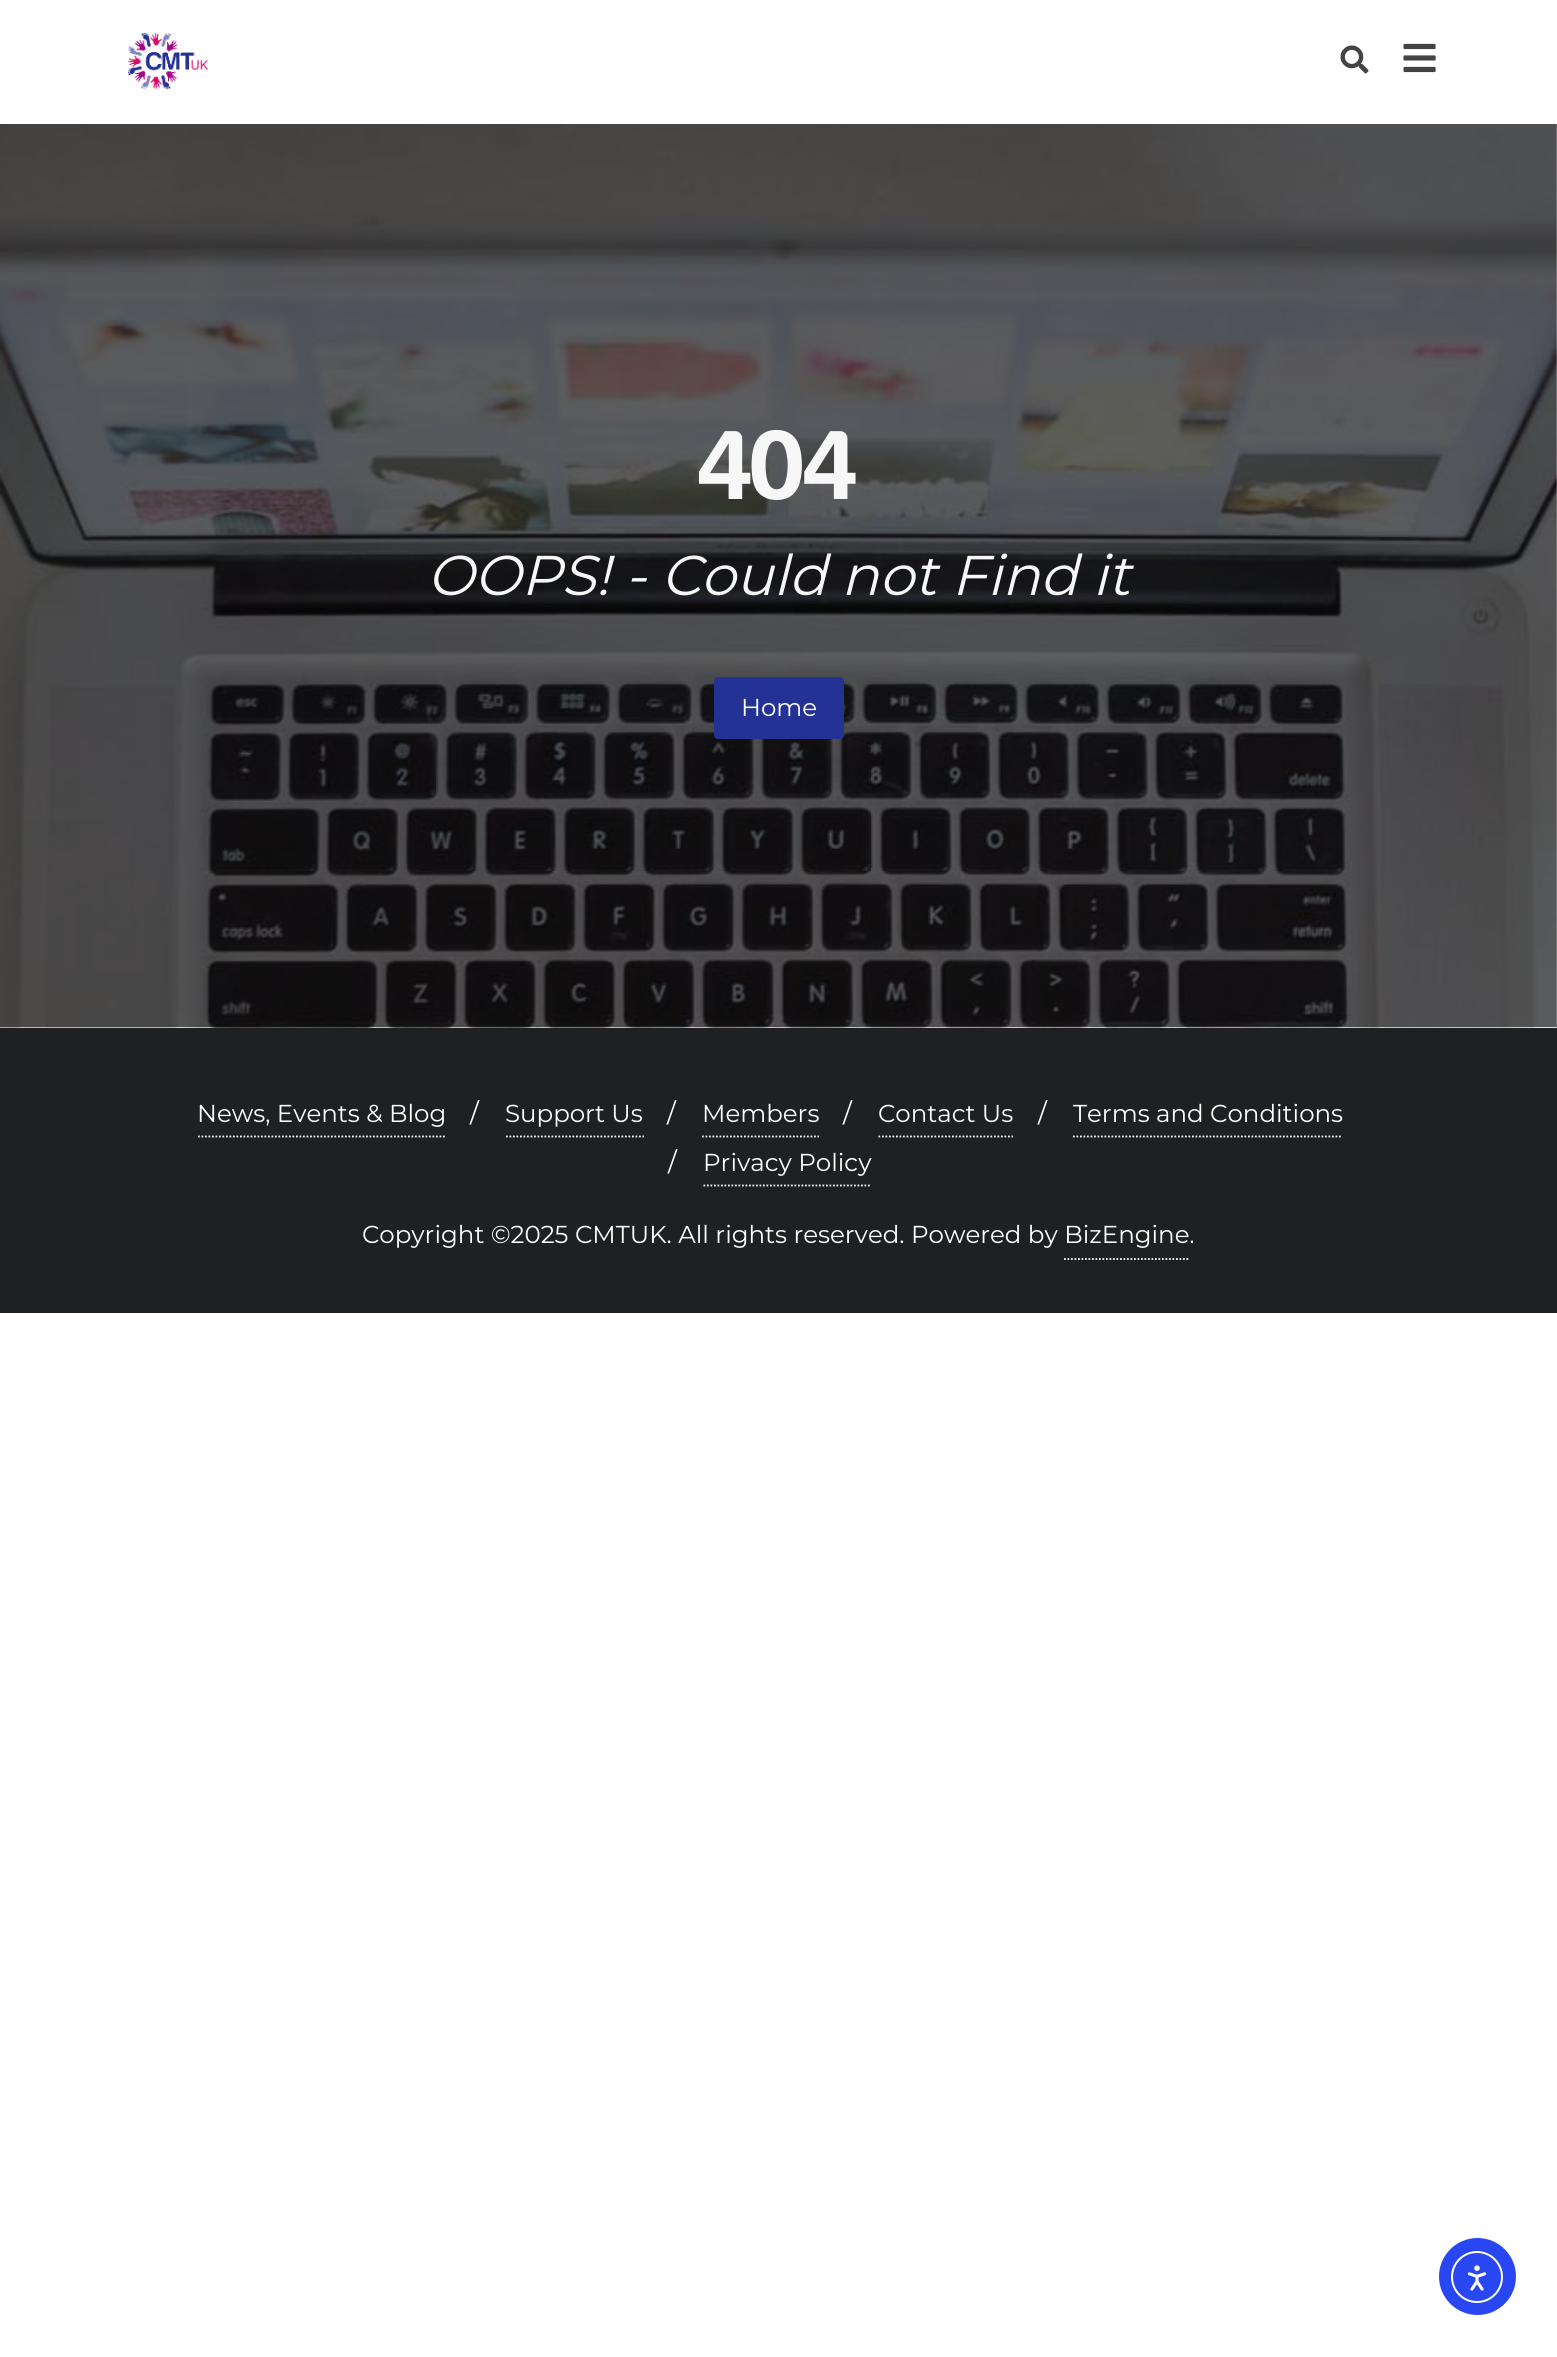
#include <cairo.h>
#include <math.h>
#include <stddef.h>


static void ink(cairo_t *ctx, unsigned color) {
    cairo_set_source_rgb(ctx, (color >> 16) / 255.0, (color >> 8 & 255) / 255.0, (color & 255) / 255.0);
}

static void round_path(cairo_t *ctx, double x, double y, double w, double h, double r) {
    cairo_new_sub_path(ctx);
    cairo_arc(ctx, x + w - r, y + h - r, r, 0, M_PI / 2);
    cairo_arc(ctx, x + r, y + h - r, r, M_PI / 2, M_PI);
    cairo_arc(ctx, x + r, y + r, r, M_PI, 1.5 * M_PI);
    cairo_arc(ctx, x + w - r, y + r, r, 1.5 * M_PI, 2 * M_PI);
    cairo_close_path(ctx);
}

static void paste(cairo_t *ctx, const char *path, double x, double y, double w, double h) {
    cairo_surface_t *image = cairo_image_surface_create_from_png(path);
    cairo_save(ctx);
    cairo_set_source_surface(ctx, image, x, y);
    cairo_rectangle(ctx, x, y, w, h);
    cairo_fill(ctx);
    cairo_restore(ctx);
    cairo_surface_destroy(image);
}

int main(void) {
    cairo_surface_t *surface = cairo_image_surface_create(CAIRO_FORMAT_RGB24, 1557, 2357);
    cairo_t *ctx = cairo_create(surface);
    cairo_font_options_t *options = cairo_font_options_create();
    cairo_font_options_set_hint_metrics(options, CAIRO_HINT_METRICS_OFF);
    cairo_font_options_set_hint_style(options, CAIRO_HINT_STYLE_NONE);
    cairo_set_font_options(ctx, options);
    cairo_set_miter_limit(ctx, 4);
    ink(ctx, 0xFFFFFF);
    cairo_paint(ctx);
    paste(ctx, "media/1.png", 128, 32, 81, 58);
    paste(ctx, "media/2.png", 1340, 45, 29, 29);
    paste(ctx, "media/3.png", 1403, 43, 33, 30);
    ink(ctx, 0x1F2024);
    cairo_rectangle(ctx, 0, 1027, 1557, 286);
    cairo_fill(ctx);
    paste(ctx, "media/4.png", 0, 124, 1557, 904);
    cairo_select_font_face(ctx, "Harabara", CAIRO_FONT_SLANT_NORMAL, CAIRO_FONT_WEIGHT_BOLD);
    cairo_set_font_size(ctx, 101);
    ink(ctx, 0xF7F7F7);
    cairo_move_to(ctx, 699, 499);
    cairo_show_text(ctx, "404");
    cairo_select_font_face(ctx, "Montserrat", CAIRO_FONT_SLANT_ITALIC, CAIRO_FONT_WEIGHT_NORMAL);
    cairo_set_font_size(ctx, 56);
    cairo_move_to(ctx, 427, 595);
    cairo_show_text(ctx, "OOPS! - Could not Find it");
    ink(ctx, 0x243296);
    round_path(ctx, 714, 677, 130, 62, 4);
    cairo_fill(ctx);
    cairo_select_font_face(ctx, "Montserrat", CAIRO_FONT_SLANT_NORMAL, CAIRO_FONT_WEIGHT_NORMAL);
    cairo_set_font_size(ctx, 24.5);
    ink(ctx, 0xFFFFFF);
    cairo_move_to(ctx, 741, 716);
    cairo_show_text(ctx, "Home");
    cairo_new_path(ctx);
    cairo_move_to(ctx, 198, 1136.5);
    cairo_line_to(ctx, 446, 1136.5);
    cairo_set_line_width(ctx, 1.8);
    cairo_set_dash(ctx, (double[]){1.75, 1.75}, 2, 0);
    cairo_stroke(ctx);
    cairo_move_to(ctx, 197, 1122);
    cairo_show_text(ctx, "News, Events & Blog");
    cairo_set_font_size(ctx, 26);
    cairo_move_to(ctx, 470, 1122);
    cairo_show_text(ctx, "/");
    cairo_new_path(ctx);
    cairo_move_to(ctx, 506, 1136.5);
    cairo_line_to(ctx, 644, 1136.5);
    cairo_stroke(ctx);
    cairo_set_font_size(ctx, 24.5);
    cairo_move_to(ctx, 505, 1122);
    cairo_show_text(ctx, "Support Us");
    cairo_set_font_size(ctx, 26);
    cairo_move_to(ctx, 667, 1122);
    cairo_show_text(ctx, "/");
    cairo_new_path(ctx);
    cairo_move_to(ctx, 702, 1136.5);
    cairo_line_to(ctx, 819, 1136.5);
    cairo_stroke(ctx);
    cairo_set_font_size(ctx, 24.5);
    cairo_move_to(ctx, 702, 1122);
    cairo_show_text(ctx, "Members");
    cairo_set_font_size(ctx, 26);
    cairo_move_to(ctx, 843, 1122);
    cairo_show_text(ctx, "/");
    cairo_new_path(ctx);
    cairo_move_to(ctx, 878.5, 1136.5);
    cairo_line_to(ctx, 1013, 1136.5);
    cairo_stroke(ctx);
    cairo_set_font_size(ctx, 24.5);
    cairo_move_to(ctx, 878, 1122);
    cairo_show_text(ctx, "Contact Us");
    cairo_set_font_size(ctx, 26);
    cairo_move_to(ctx, 1038, 1122);
    cairo_show_text(ctx, "/");
    cairo_new_path(ctx);
    cairo_move_to(ctx, 1073, 1136.5);
    cairo_line_to(ctx, 1342, 1136.5);
    cairo_stroke(ctx);
    cairo_set_font_size(ctx, 24.5);
    cairo_move_to(ctx, 1073, 1122);
    cairo_show_text(ctx, "Terms and Conditions");
    cairo_set_font_size(ctx, 26);
    cairo_move_to(ctx, 668, 1171);
    cairo_show_text(ctx, "/");
    cairo_new_path(ctx);
    cairo_move_to(ctx, 703.5, 1185.5);
    cairo_line_to(ctx, 871.5, 1185.5);
    cairo_stroke(ctx);
    cairo_set_font_size(ctx, 24.5);
    cairo_move_to(ctx, 703, 1171);
    cairo_show_text(ctx, "Privacy Policy");
    cairo_move_to(ctx, 362, 1243);
    cairo_show_text(ctx, "Copyright ©2025 CMTUK. All rights reserved. Powered by BizEngine.");
    cairo_new_path(ctx);
    cairo_move_to(ctx, 1064, 1259);
    cairo_line_to(ctx, 1190, 1259);
    cairo_stroke(ctx);
    ink(ctx, 0x2847F3);
    cairo_arc(ctx, 1477.5, 2276.5, 38.5, 0, 2 * M_PI);
    cairo_fill(ctx);
    cairo_arc(ctx, 1477, 2277, 25, 0, 2 * M_PI);
    ink(ctx, 0xFFFFFF);
    cairo_set_line_width(ctx, 2);
    cairo_set_dash(ctx, NULL, 0, 0);
    cairo_stroke(ctx);
    paste(ctx, "media/5.png", 1467, 2265, 20, 26);
    cairo_surface_write_to_png(surface, "image.png");
    cairo_font_options_destroy(options);
    cairo_destroy(ctx);
    cairo_surface_destroy(surface);
    return 0;
}
